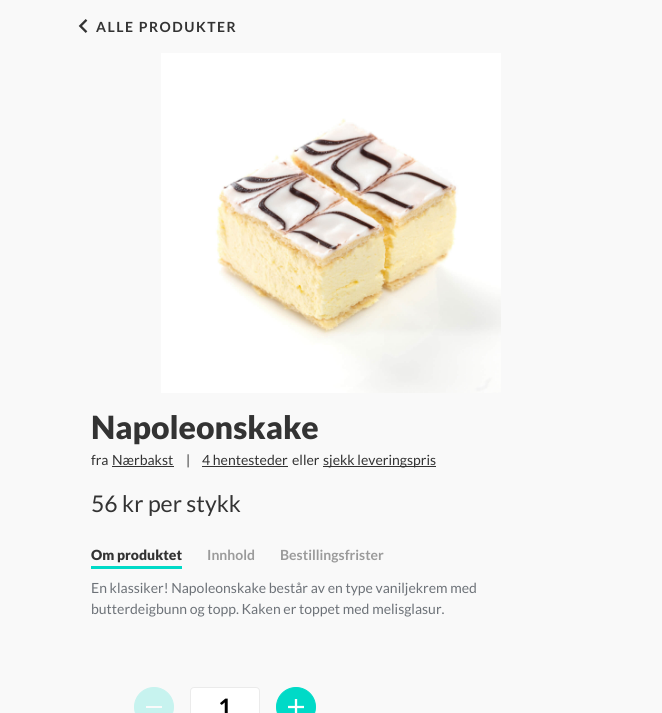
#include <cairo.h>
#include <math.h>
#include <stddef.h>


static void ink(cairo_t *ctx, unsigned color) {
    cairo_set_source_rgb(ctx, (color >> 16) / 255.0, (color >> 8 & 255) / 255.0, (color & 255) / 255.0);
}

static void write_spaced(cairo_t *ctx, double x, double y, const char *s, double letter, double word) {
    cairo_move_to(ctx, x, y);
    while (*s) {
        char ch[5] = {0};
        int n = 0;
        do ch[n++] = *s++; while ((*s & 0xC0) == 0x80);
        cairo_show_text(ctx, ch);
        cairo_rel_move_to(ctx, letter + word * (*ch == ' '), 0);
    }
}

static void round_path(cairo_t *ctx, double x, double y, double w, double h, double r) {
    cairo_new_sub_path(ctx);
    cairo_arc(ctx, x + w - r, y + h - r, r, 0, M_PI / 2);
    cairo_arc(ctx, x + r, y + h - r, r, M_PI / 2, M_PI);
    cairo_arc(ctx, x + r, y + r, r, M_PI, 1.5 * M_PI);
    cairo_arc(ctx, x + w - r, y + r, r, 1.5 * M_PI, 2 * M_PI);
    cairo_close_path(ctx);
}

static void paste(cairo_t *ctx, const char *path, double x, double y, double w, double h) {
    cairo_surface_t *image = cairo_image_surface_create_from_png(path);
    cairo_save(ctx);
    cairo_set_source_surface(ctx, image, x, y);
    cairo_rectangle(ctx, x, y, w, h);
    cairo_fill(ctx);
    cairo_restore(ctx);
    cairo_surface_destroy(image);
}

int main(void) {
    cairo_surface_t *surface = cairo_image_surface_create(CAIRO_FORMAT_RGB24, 662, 713);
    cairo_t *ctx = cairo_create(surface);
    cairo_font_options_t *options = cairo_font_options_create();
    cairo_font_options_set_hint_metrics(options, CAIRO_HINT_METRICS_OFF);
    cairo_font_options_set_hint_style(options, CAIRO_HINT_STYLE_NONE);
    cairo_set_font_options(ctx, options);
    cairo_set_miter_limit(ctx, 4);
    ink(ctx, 0xF9F9F9);
    cairo_paint(ctx);
    paste(ctx, "media/1.png", 78, 19, 10, 14);
    cairo_select_font_face(ctx, "Lato", CAIRO_FONT_SLANT_NORMAL, CAIRO_FONT_WEIGHT_BOLD);
    cairo_set_font_size(ctx, 14);
    ink(ctx, 0x333333);
    write_spaced(ctx, 96, 32, "ALLE PRODUKTER", 1.5, 0);
    paste(ctx, "media/2.png", 161, 53, 340, 340);
    cairo_select_font_face(ctx, "Lato Black", CAIRO_FONT_SLANT_NORMAL, CAIRO_FONT_WEIGHT_NORMAL);
    cairo_set_font_size(ctx, 32);
    cairo_move_to(ctx, 91, 439);
    cairo_show_text(ctx, "Napoleonskake");
    cairo_select_font_face(ctx, "Lato", CAIRO_FONT_SLANT_NORMAL, CAIRO_FONT_WEIGHT_NORMAL);
    cairo_set_font_size(ctx, 14);
    cairo_move_to(ctx, 91, 465);
    cairo_show_text(ctx, "fra");
    cairo_move_to(ctx, 112, 465);
    cairo_show_text(ctx, "Nærbakst");
    cairo_rectangle(ctx, 112, 466, 62, 1);
    cairo_fill(ctx);
    cairo_move_to(ctx, 186, 465);
    cairo_show_text(ctx, "|");
    cairo_move_to(ctx, 202, 465);
    cairo_show_text(ctx, "4 hentesteder");
    cairo_rectangle(ctx, 202, 466, 86, 1);
    cairo_fill(ctx);
    cairo_move_to(ctx, 292, 465);
    cairo_show_text(ctx, "eller");
    cairo_rectangle(ctx, 323, 466, 113, 1);
    cairo_fill(ctx);
    cairo_move_to(ctx, 323, 465);
    cairo_show_text(ctx, "sjekk leveringspris");
    cairo_set_font_size(ctx, 23);
    cairo_move_to(ctx, 91, 512);
    cairo_show_text(ctx, "56 kr per stykk");
    ink(ctx, 0x00DAC7);
    cairo_rectangle(ctx, 91, 566, 91, 3);
    cairo_fill(ctx);
    cairo_select_font_face(ctx, "Lato Black", CAIRO_FONT_SLANT_NORMAL, CAIRO_FONT_WEIGHT_NORMAL);
    cairo_set_font_size(ctx, 14);
    ink(ctx, 0x333333);
    cairo_move_to(ctx, 91, 560);
    cairo_show_text(ctx, "Om produktet");
    cairo_select_font_face(ctx, "Lato", CAIRO_FONT_SLANT_NORMAL, CAIRO_FONT_WEIGHT_BOLD);
    ink(ctx, 0x9B9B9B);
    cairo_move_to(ctx, 207, 560);
    cairo_show_text(ctx, "Innhold");
    cairo_move_to(ctx, 280, 560);
    cairo_show_text(ctx, "Bestillingsfrister");
    cairo_select_font_face(ctx, "Lato", CAIRO_FONT_SLANT_NORMAL, CAIRO_FONT_WEIGHT_NORMAL);
    ink(ctx, 0x6D7278);
    cairo_move_to(ctx, 91, 593);
    cairo_show_text(ctx, "En klassiker! Napoleonskake består av en type vaniljekrem med");
    cairo_move_to(ctx, 91, 614);
    cairo_show_text(ctx, "butterdeigbunn og topp. Kaken er toppet med melisglasur.");
    ink(ctx, 0xC7F3EF);
    cairo_new_path(ctx);
    cairo_arc(ctx, 154, 707, 19.5, 0, 2 * M_PI);
    cairo_fill_preserve(ctx);
    cairo_set_line_width(ctx, 1);
    cairo_stroke(ctx);
    ink(ctx, 0xFAFAFA);
    cairo_rectangle(ctx, 146, 706, 16, 2);
    cairo_fill(ctx);
    ink(ctx, 0xFFFFFF);
    round_path(ctx, 190.5, 687.5, 69, 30, 3.5);
    cairo_fill_preserve(ctx);
    ink(ctx, 0xEBEBEB);
    cairo_stroke(ctx);
    cairo_select_font_face(ctx, "Lato", CAIRO_FONT_SLANT_NORMAL, CAIRO_FONT_WEIGHT_BOLD);
    cairo_set_font_size(ctx, 24);
    ink(ctx, 0x000000);
    cairo_move_to(ctx, 218, 716);
    cairo_show_text(ctx, "1");
    ink(ctx, 0x00DAC7);
    cairo_new_path(ctx);
    cairo_arc(ctx, 296, 707, 19.5, 0, 2 * M_PI);
    cairo_fill_preserve(ctx);
    cairo_stroke(ctx);
    paste(ctx, "media/3.png", 288, 699, 16, 14);
    cairo_surface_write_to_png(surface, "image.png");
    cairo_font_options_destroy(options);
    cairo_destroy(ctx);
    cairo_surface_destroy(surface);
    return 0;
}
